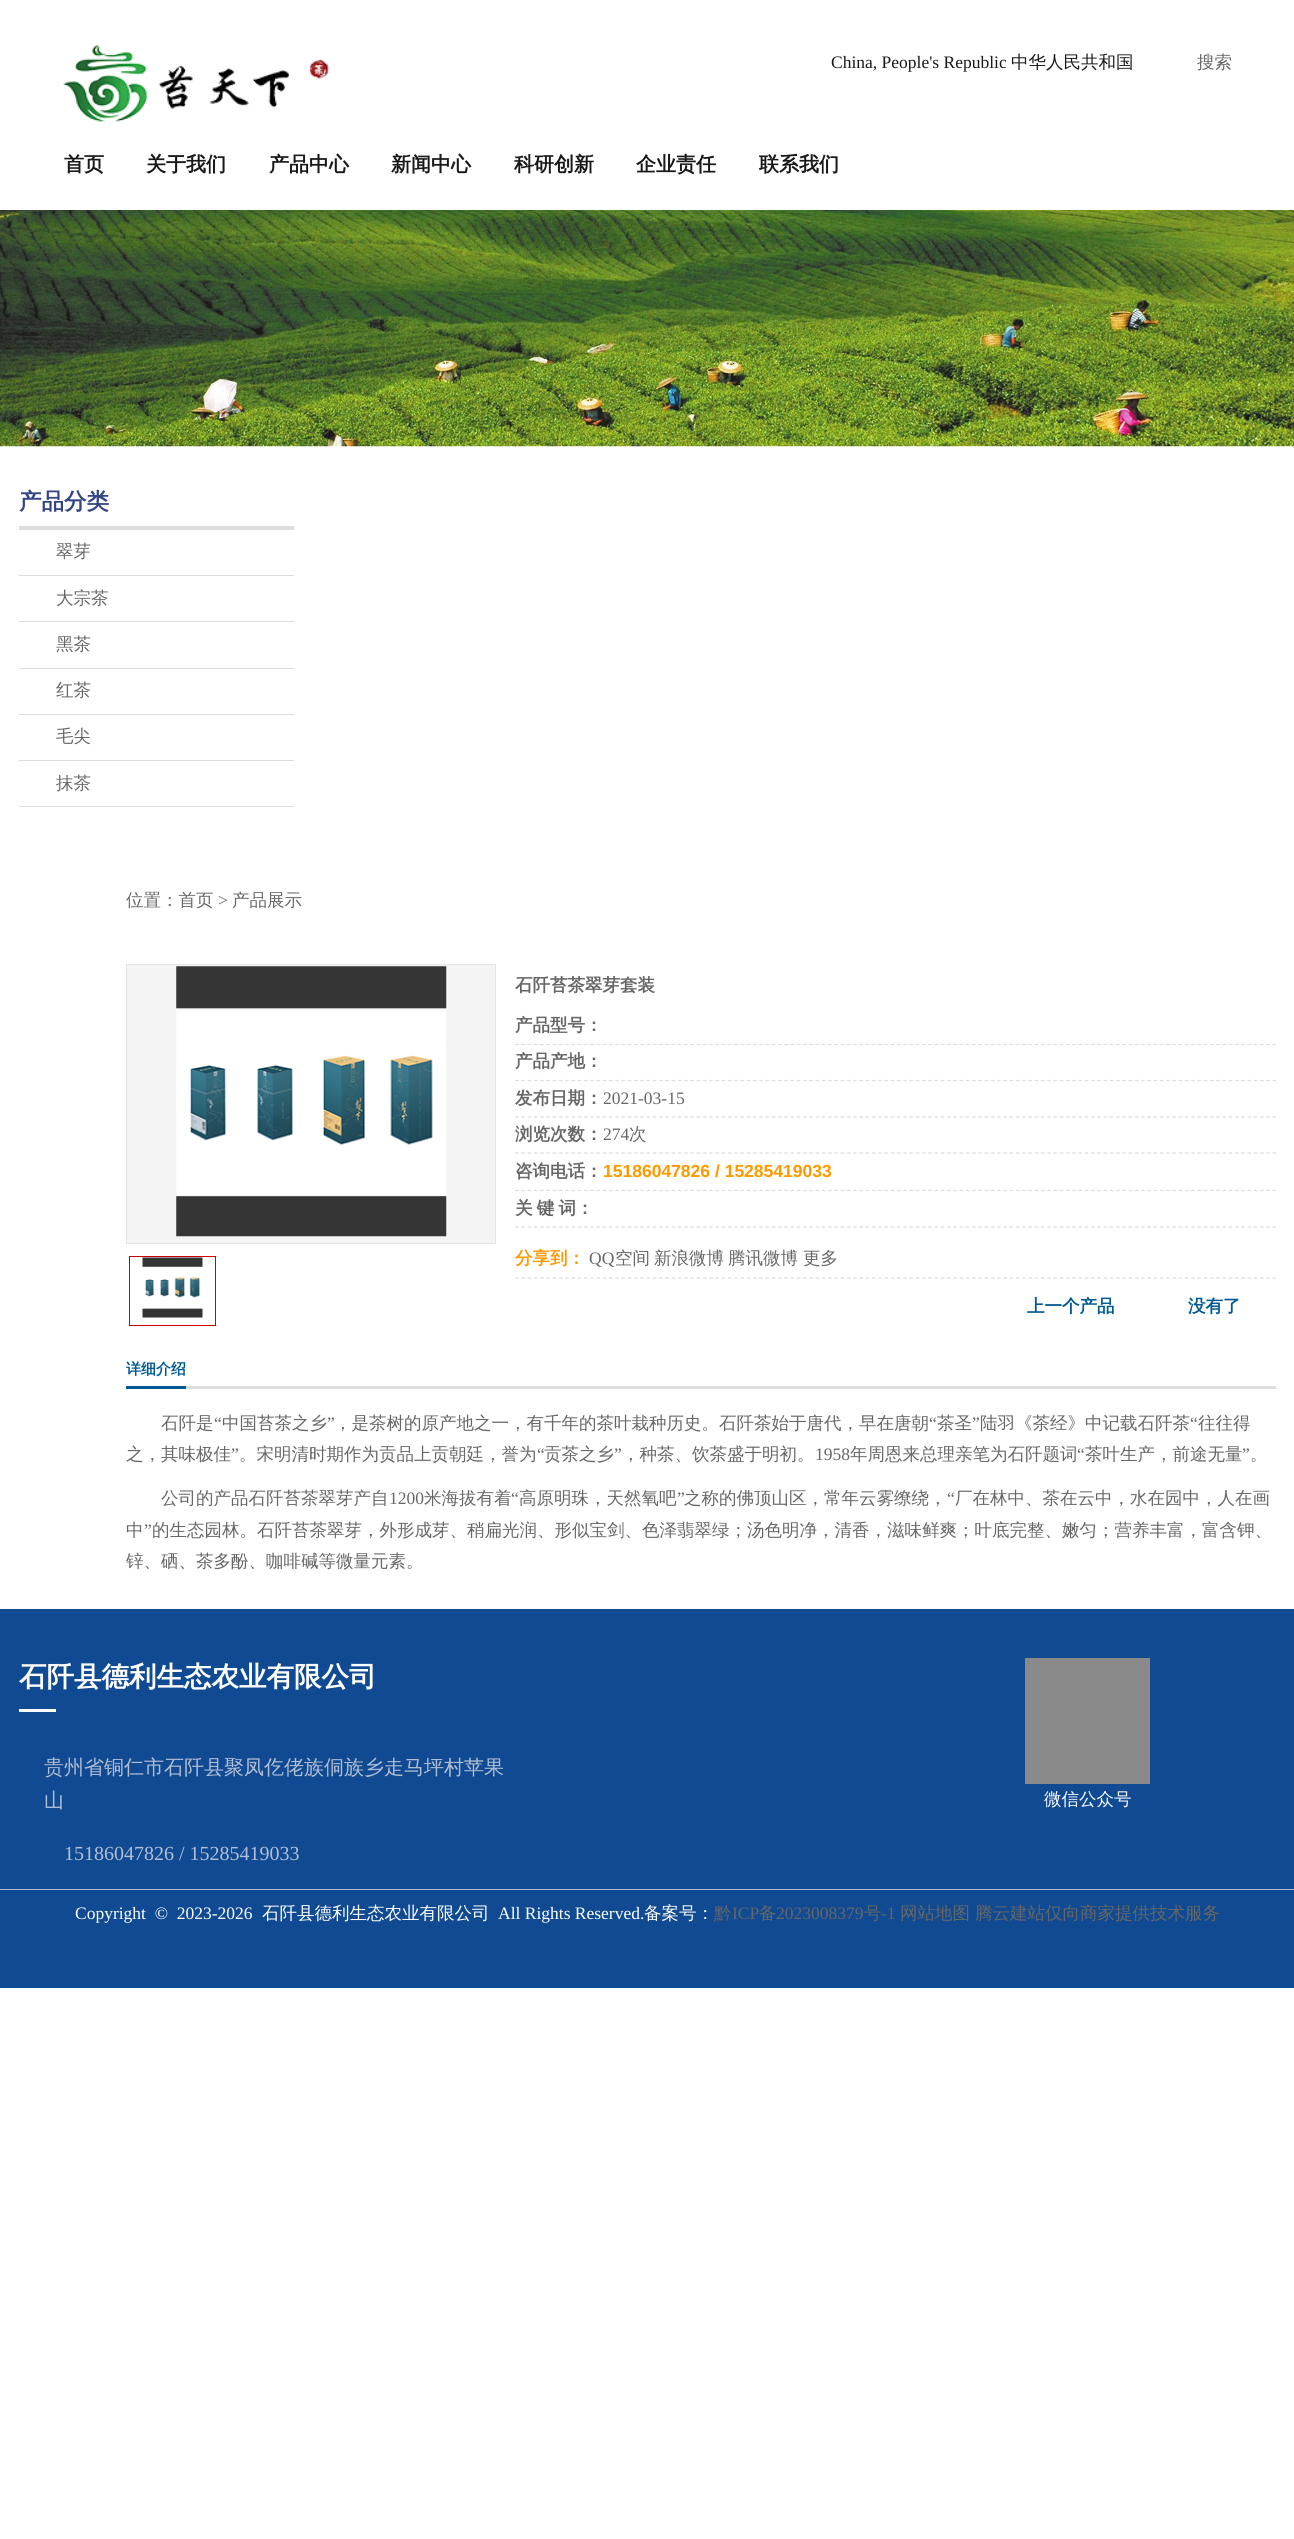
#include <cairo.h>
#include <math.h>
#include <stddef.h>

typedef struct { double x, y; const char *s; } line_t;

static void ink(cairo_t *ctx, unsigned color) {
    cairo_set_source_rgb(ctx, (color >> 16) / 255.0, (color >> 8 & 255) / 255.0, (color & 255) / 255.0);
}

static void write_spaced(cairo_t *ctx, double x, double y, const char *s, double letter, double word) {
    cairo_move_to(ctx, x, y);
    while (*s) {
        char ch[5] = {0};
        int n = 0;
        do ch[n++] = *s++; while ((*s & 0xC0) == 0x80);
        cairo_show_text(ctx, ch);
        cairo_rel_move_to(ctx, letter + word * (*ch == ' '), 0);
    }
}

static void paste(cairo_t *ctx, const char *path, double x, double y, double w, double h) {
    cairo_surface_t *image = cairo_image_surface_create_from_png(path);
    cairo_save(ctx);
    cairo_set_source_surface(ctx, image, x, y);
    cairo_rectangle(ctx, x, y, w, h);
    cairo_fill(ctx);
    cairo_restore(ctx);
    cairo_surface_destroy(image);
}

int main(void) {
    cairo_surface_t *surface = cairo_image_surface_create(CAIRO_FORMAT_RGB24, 1294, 2539);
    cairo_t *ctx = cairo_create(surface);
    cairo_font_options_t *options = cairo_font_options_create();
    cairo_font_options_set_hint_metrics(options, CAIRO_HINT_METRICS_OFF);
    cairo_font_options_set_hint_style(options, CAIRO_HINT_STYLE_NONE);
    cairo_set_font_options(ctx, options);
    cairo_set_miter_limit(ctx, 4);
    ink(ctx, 0xFFFFFF);
    cairo_paint(ctx);
    paste(ctx, "media/1.png", 63, 44, 266, 79);
    cairo_select_font_face(ctx, "Liberation Serif", CAIRO_FONT_SLANT_NORMAL, CAIRO_FONT_WEIGHT_NORMAL);
    cairo_set_font_size(ctx, 17.5);
    ink(ctx, 0x191919);
    cairo_move_to(ctx, 831, 68);
    cairo_show_text(ctx, "China, People's Republic");
    cairo_select_font_face(ctx, "WenQuanYi Zen Hei Medium", CAIRO_FONT_SLANT_NORMAL, CAIRO_FONT_WEIGHT_NORMAL);
    cairo_move_to(ctx, 1011, 68);
    cairo_show_text(ctx, "中华人民共和国");
    ink(ctx, 0x666666);
    cairo_move_to(ctx, 1197, 68);
    cairo_show_text(ctx, "搜索");
    cairo_select_font_face(ctx, "WenQuanYi Zen Hei", CAIRO_FONT_SLANT_NORMAL, CAIRO_FONT_WEIGHT_BOLD);
    cairo_set_font_size(ctx, 20);
    ink(ctx, 0x191919);
    {
        static const line_t items[] = {
            {64, 171, "首页"},
            {146, 171, "关于我们"},
            {269, 171, "产品中心"},
            {391, 171, "新闻中心"},
            {514, 171, "科研创新"},
            {636, 171, "企业责任"},
            {759, 171, "联系我们"},
        };
        for (size_t i = 0; i < sizeof items / sizeof *items; i++) {
            cairo_move_to(ctx, items[i].x, items[i].y);
            cairo_show_text(ctx, items[i].s);
        }
    }
    paste(ctx, "media/2.png", 0, 210, 1294, 237);
    ink(ctx, 0xDDDDDD);
    cairo_rectangle(ctx, 19, 526, 275, 4);
    cairo_fill(ctx);
    cairo_set_font_size(ctx, 22.5);
    ink(ctx, 0x324483);
    cairo_move_to(ctx, 19, 509);
    cairo_show_text(ctx, "产品分类");
    ink(ctx, 0xDDDDDD);
    cairo_rectangle(ctx, 19, 575, 275, 1);
    cairo_fill(ctx);
    cairo_select_font_face(ctx, "WenQuanYi Zen Hei Medium", CAIRO_FONT_SLANT_NORMAL, CAIRO_FONT_WEIGHT_NORMAL);
    cairo_set_font_size(ctx, 17.5);
    ink(ctx, 0x666666);
    cairo_move_to(ctx, 56, 557);
    cairo_show_text(ctx, "翠芽");
    ink(ctx, 0xDDDDDD);
    cairo_rectangle(ctx, 19, 621, 275, 1);
    cairo_fill(ctx);
    ink(ctx, 0x666666);
    cairo_move_to(ctx, 56, 604);
    cairo_show_text(ctx, "大宗茶");
    ink(ctx, 0xDDDDDD);
    cairo_rectangle(ctx, 19, 668, 275, 1);
    cairo_fill(ctx);
    ink(ctx, 0x666666);
    cairo_move_to(ctx, 56, 650);
    cairo_show_text(ctx, "黑茶");
    ink(ctx, 0xDDDDDD);
    cairo_rectangle(ctx, 19, 714, 275, 1);
    cairo_fill(ctx);
    ink(ctx, 0x666666);
    cairo_move_to(ctx, 56, 696);
    cairo_show_text(ctx, "红茶");
    ink(ctx, 0xDDDDDD);
    cairo_rectangle(ctx, 19, 760, 275, 1);
    cairo_fill(ctx);
    ink(ctx, 0x666666);
    cairo_move_to(ctx, 56, 742);
    cairo_show_text(ctx, "毛尖");
    ink(ctx, 0xDDDDDD);
    cairo_rectangle(ctx, 19, 806, 275, 1);
    cairo_fill(ctx);
    ink(ctx, 0x666666);
    cairo_move_to(ctx, 56, 789);
    cairo_show_text(ctx, "抹茶");
    cairo_move_to(ctx, 126, 906);
    cairo_show_text(ctx, "位置：首页");
    cairo_select_font_face(ctx, "Liberation Serif", CAIRO_FONT_SLANT_NORMAL, CAIRO_FONT_WEIGHT_NORMAL);
    cairo_move_to(ctx, 218, 906);
    cairo_show_text(ctx, ">");
    cairo_select_font_face(ctx, "WenQuanYi Zen Hei Medium", CAIRO_FONT_SLANT_NORMAL, CAIRO_FONT_WEIGHT_NORMAL);
    cairo_move_to(ctx, 232, 906);
    cairo_show_text(ctx, "产品展示");
    ink(ctx, 0xF4F4F4);
    cairo_rectangle(ctx, 126.5, 964.5, 369, 279);
    cairo_fill_preserve(ctx);
    ink(ctx, 0xE4E4E4);
    cairo_set_line_width(ctx, 1);
    cairo_stroke(ctx);
    paste(ctx, "media/3.png", 176, 966, 271, 271);
    cairo_rectangle(ctx, 129.5, 1256.5, 86, 69);
    ink(ctx, 0xCC0000);
    cairo_stroke(ctx);
    paste(ctx, "media/4.png", 142, 1257, 61, 61);
    cairo_select_font_face(ctx, "WenQuanYi Zen Hei", CAIRO_FONT_SLANT_NORMAL, CAIRO_FONT_WEIGHT_BOLD);
    ink(ctx, 0x666666);
    cairo_move_to(ctx, 515, 991);
    cairo_show_text(ctx, "石阡苔茶翠芽套装");
    cairo_new_path(ctx);
    cairo_move_to(ctx, 515, 1044.5);
    cairo_line_to(ctx, 1276, 1044.5);
    ink(ctx, 0xDDDDDD);
    cairo_set_line_width(ctx, 1.2);
    cairo_set_dash(ctx, (double[]){3.75, 2.51}, 2, 0);
    cairo_stroke(ctx);
    ink(ctx, 0x666666);
    cairo_move_to(ctx, 515, 1031);
    cairo_show_text(ctx, "产品型号：");
    cairo_new_path(ctx);
    cairo_move_to(ctx, 515, 1080.5);
    cairo_line_to(ctx, 1276, 1080.5);
    ink(ctx, 0xDDDDDD);
    cairo_stroke(ctx);
    ink(ctx, 0x666666);
    cairo_move_to(ctx, 515, 1067);
    cairo_show_text(ctx, "产品产地：");
    cairo_new_path(ctx);
    cairo_move_to(ctx, 515, 1117);
    cairo_line_to(ctx, 1276, 1117);
    ink(ctx, 0xDDDDDD);
    cairo_stroke(ctx);
    ink(ctx, 0x666666);
    cairo_move_to(ctx, 515, 1104);
    cairo_show_text(ctx, "发布日期：");
    cairo_select_font_face(ctx, "Liberation Serif", CAIRO_FONT_SLANT_NORMAL, CAIRO_FONT_WEIGHT_NORMAL);
    cairo_move_to(ctx, 603, 1104);
    cairo_show_text(ctx, "2021-03-15");
    cairo_new_path(ctx);
    cairo_move_to(ctx, 515, 1153);
    cairo_line_to(ctx, 1276, 1153);
    ink(ctx, 0xDDDDDD);
    cairo_stroke(ctx);
    cairo_select_font_face(ctx, "WenQuanYi Zen Hei", CAIRO_FONT_SLANT_NORMAL, CAIRO_FONT_WEIGHT_BOLD);
    ink(ctx, 0x666666);
    cairo_move_to(ctx, 515, 1140);
    cairo_show_text(ctx, "浏览次数：");
    cairo_select_font_face(ctx, "Liberation Serif", CAIRO_FONT_SLANT_NORMAL, CAIRO_FONT_WEIGHT_NORMAL);
    cairo_move_to(ctx, 603, 1140);
    cairo_show_text(ctx, "274");
    cairo_select_font_face(ctx, "WenQuanYi Zen Hei Medium", CAIRO_FONT_SLANT_NORMAL, CAIRO_FONT_WEIGHT_NORMAL);
    cairo_move_to(ctx, 629, 1140);
    cairo_show_text(ctx, "次");
    cairo_new_path(ctx);
    cairo_move_to(ctx, 515, 1190.5);
    cairo_line_to(ctx, 1276, 1190.5);
    ink(ctx, 0xDDDDDD);
    cairo_stroke(ctx);
    cairo_select_font_face(ctx, "WenQuanYi Zen Hei", CAIRO_FONT_SLANT_NORMAL, CAIRO_FONT_WEIGHT_BOLD);
    ink(ctx, 0x666666);
    cairo_move_to(ctx, 515, 1177);
    cairo_show_text(ctx, "咨询电话：");
    cairo_select_font_face(ctx, "Liberation Sans", CAIRO_FONT_SLANT_NORMAL, CAIRO_FONT_WEIGHT_BOLD);
    ink(ctx, 0xFF9900);
    cairo_move_to(ctx, 603, 1177);
    cairo_show_text(ctx, "15186047826 / 15285419033");
    cairo_new_path(ctx);
    cairo_move_to(ctx, 515, 1227);
    cairo_line_to(ctx, 1276, 1227);
    ink(ctx, 0xDDDDDD);
    cairo_stroke(ctx);
    cairo_select_font_face(ctx, "WenQuanYi Zen Hei", CAIRO_FONT_SLANT_NORMAL, CAIRO_FONT_WEIGHT_BOLD);
    ink(ctx, 0x666666);
    write_spaced(ctx, 515, 1214, "关 键 词：", 0, -1);
    cairo_new_path(ctx);
    cairo_move_to(ctx, 515, 1278);
    cairo_line_to(ctx, 1276, 1278);
    ink(ctx, 0xDDDDDD);
    cairo_stroke(ctx);
    ink(ctx, 0xFF9900);
    cairo_move_to(ctx, 515, 1264);
    cairo_show_text(ctx, "分享到：");
    cairo_select_font_face(ctx, "Liberation Serif", CAIRO_FONT_SLANT_NORMAL, CAIRO_FONT_WEIGHT_NORMAL);
    ink(ctx, 0x666666);
    cairo_move_to(ctx, 589, 1264);
    cairo_show_text(ctx, "QQ");
    cairo_select_font_face(ctx, "WenQuanYi Zen Hei Medium", CAIRO_FONT_SLANT_NORMAL, CAIRO_FONT_WEIGHT_NORMAL);
    {
        static const line_t items[] = {
            {615, 1264, "空间"},
            {654, 1264, "新浪微博"},
            {728, 1264, "腾讯微博"},
            {803, 1264, "更多"},
        };
        for (size_t i = 0; i < sizeof items / sizeof *items; i++) {
            cairo_move_to(ctx, items[i].x, items[i].y);
            cairo_show_text(ctx, items[i].s);
        }
    }
    cairo_select_font_face(ctx, "WenQuanYi Zen Hei", CAIRO_FONT_SLANT_NORMAL, CAIRO_FONT_WEIGHT_BOLD);
    ink(ctx, 0x005895);
    cairo_move_to(ctx, 1027, 1312);
    cairo_show_text(ctx, "上一个产品");
    cairo_move_to(ctx, 1188, 1312);
    cairo_show_text(ctx, "没有了");
    ink(ctx, 0xDDDDDD);
    cairo_rectangle(ctx, 186, 1386, 1090, 3);
    cairo_fill(ctx);
    ink(ctx, 0x005895);
    cairo_rectangle(ctx, 126, 1386, 60, 3);
    cairo_fill(ctx);
    cairo_set_font_size(ctx, 15);
    cairo_move_to(ctx, 126, 1374);
    cairo_show_text(ctx, "详细介绍");
    cairo_select_font_face(ctx, "WenQuanYi Zen Hei Medium", CAIRO_FONT_SLANT_NORMAL, CAIRO_FONT_WEIGHT_NORMAL);
    cairo_set_font_size(ctx, 17.5);
    ink(ctx, 0x666666);
    cairo_move_to(ctx, 161, 1429);
    cairo_show_text(ctx, "石阡是");
    cairo_select_font_face(ctx, "Liberation Serif", CAIRO_FONT_SLANT_NORMAL, CAIRO_FONT_WEIGHT_NORMAL);
    cairo_move_to(ctx, 214, 1429);
    cairo_show_text(ctx, "“");
    cairo_select_font_face(ctx, "WenQuanYi Zen Hei Medium", CAIRO_FONT_SLANT_NORMAL, CAIRO_FONT_WEIGHT_NORMAL);
    cairo_move_to(ctx, 222, 1429);
    cairo_show_text(ctx, "中国苔茶之乡");
    cairo_select_font_face(ctx, "Liberation Serif", CAIRO_FONT_SLANT_NORMAL, CAIRO_FONT_WEIGHT_NORMAL);
    cairo_move_to(ctx, 327, 1429);
    cairo_show_text(ctx, "”");
    cairo_select_font_face(ctx, "WenQuanYi Zen Hei Medium", CAIRO_FONT_SLANT_NORMAL, CAIRO_FONT_WEIGHT_NORMAL);
    cairo_move_to(ctx, 334, 1429);
    cairo_show_text(ctx, "，是茶树的原产地之一，有千年的茶叶栽种历史。石阡茶始于唐代，早在唐朝");
    cairo_select_font_face(ctx, "Liberation Serif", CAIRO_FONT_SLANT_NORMAL, CAIRO_FONT_WEIGHT_NORMAL);
    cairo_move_to(ctx, 929, 1429);
    cairo_show_text(ctx, "“");
    cairo_select_font_face(ctx, "WenQuanYi Zen Hei Medium", CAIRO_FONT_SLANT_NORMAL, CAIRO_FONT_WEIGHT_NORMAL);
    cairo_move_to(ctx, 937, 1429);
    cairo_show_text(ctx, "茶圣");
    cairo_select_font_face(ctx, "Liberation Serif", CAIRO_FONT_SLANT_NORMAL, CAIRO_FONT_WEIGHT_NORMAL);
    cairo_move_to(ctx, 972, 1429);
    cairo_show_text(ctx, "”");
    cairo_select_font_face(ctx, "WenQuanYi Zen Hei Medium", CAIRO_FONT_SLANT_NORMAL, CAIRO_FONT_WEIGHT_NORMAL);
    cairo_move_to(ctx, 980, 1429);
    cairo_show_text(ctx, "陆羽《茶经》中记载石阡茶");
    cairo_select_font_face(ctx, "Liberation Serif", CAIRO_FONT_SLANT_NORMAL, CAIRO_FONT_WEIGHT_NORMAL);
    cairo_move_to(ctx, 1190, 1429);
    cairo_show_text(ctx, "“");
    cairo_select_font_face(ctx, "WenQuanYi Zen Hei Medium", CAIRO_FONT_SLANT_NORMAL, CAIRO_FONT_WEIGHT_NORMAL);
    cairo_move_to(ctx, 1198, 1429);
    cairo_show_text(ctx, "往往得");
    cairo_move_to(ctx, 126, 1460);
    cairo_show_text(ctx, "之，其味极佳");
    cairo_select_font_face(ctx, "Liberation Serif", CAIRO_FONT_SLANT_NORMAL, CAIRO_FONT_WEIGHT_NORMAL);
    cairo_move_to(ctx, 231, 1460);
    cairo_show_text(ctx, "”");
    cairo_select_font_face(ctx, "WenQuanYi Zen Hei Medium", CAIRO_FONT_SLANT_NORMAL, CAIRO_FONT_WEIGHT_NORMAL);
    cairo_move_to(ctx, 239, 1460);
    cairo_show_text(ctx, "。宋明清时期作为贡品上贡朝廷，誉为");
    cairo_select_font_face(ctx, "Liberation Serif", CAIRO_FONT_SLANT_NORMAL, CAIRO_FONT_WEIGHT_NORMAL);
    cairo_move_to(ctx, 537, 1460);
    cairo_show_text(ctx, "“");
    cairo_select_font_face(ctx, "WenQuanYi Zen Hei Medium", CAIRO_FONT_SLANT_NORMAL, CAIRO_FONT_WEIGHT_NORMAL);
    cairo_move_to(ctx, 544, 1460);
    cairo_show_text(ctx, "贡茶之乡");
    cairo_select_font_face(ctx, "Liberation Serif", CAIRO_FONT_SLANT_NORMAL, CAIRO_FONT_WEIGHT_NORMAL);
    cairo_move_to(ctx, 614, 1460);
    cairo_show_text(ctx, "”");
    cairo_select_font_face(ctx, "WenQuanYi Zen Hei Medium", CAIRO_FONT_SLANT_NORMAL, CAIRO_FONT_WEIGHT_NORMAL);
    cairo_move_to(ctx, 622, 1460);
    cairo_show_text(ctx, "，种茶、饮茶盛于明初。");
    cairo_select_font_face(ctx, "Liberation Serif", CAIRO_FONT_SLANT_NORMAL, CAIRO_FONT_WEIGHT_NORMAL);
    cairo_move_to(ctx, 815, 1460);
    cairo_show_text(ctx, "1958");
    cairo_select_font_face(ctx, "WenQuanYi Zen Hei Medium", CAIRO_FONT_SLANT_NORMAL, CAIRO_FONT_WEIGHT_NORMAL);
    cairo_move_to(ctx, 850, 1460);
    cairo_show_text(ctx, "年周恩来总理亲笔为石阡题词");
    cairo_select_font_face(ctx, "Liberation Serif", CAIRO_FONT_SLANT_NORMAL, CAIRO_FONT_WEIGHT_NORMAL);
    cairo_move_to(ctx, 1077, 1460);
    cairo_show_text(ctx, "“");
    cairo_select_font_face(ctx, "WenQuanYi Zen Hei Medium", CAIRO_FONT_SLANT_NORMAL, CAIRO_FONT_WEIGHT_NORMAL);
    cairo_move_to(ctx, 1085, 1460);
    cairo_show_text(ctx, "茶叶生产，前途无量");
    cairo_select_font_face(ctx, "Liberation Serif", CAIRO_FONT_SLANT_NORMAL, CAIRO_FONT_WEIGHT_NORMAL);
    cairo_move_to(ctx, 1242, 1460);
    cairo_show_text(ctx, "”");
    cairo_select_font_face(ctx, "WenQuanYi Zen Hei Medium", CAIRO_FONT_SLANT_NORMAL, CAIRO_FONT_WEIGHT_NORMAL);
    cairo_move_to(ctx, 1250, 1460);
    cairo_show_text(ctx, "。");
    cairo_move_to(ctx, 161, 1504);
    cairo_show_text(ctx, "公司的产品石阡苔茶翠芽产自");
    cairo_select_font_face(ctx, "Liberation Serif", CAIRO_FONT_SLANT_NORMAL, CAIRO_FONT_WEIGHT_NORMAL);
    cairo_move_to(ctx, 389, 1504);
    cairo_show_text(ctx, "1200");
    cairo_select_font_face(ctx, "WenQuanYi Zen Hei Medium", CAIRO_FONT_SLANT_NORMAL, CAIRO_FONT_WEIGHT_NORMAL);
    cairo_move_to(ctx, 424, 1504);
    cairo_show_text(ctx, "米海拔有着");
    cairo_select_font_face(ctx, "Liberation Serif", CAIRO_FONT_SLANT_NORMAL, CAIRO_FONT_WEIGHT_NORMAL);
    cairo_move_to(ctx, 511, 1504);
    cairo_show_text(ctx, "“");
    cairo_select_font_face(ctx, "WenQuanYi Zen Hei Medium", CAIRO_FONT_SLANT_NORMAL, CAIRO_FONT_WEIGHT_NORMAL);
    cairo_move_to(ctx, 519, 1504);
    cairo_show_text(ctx, "高原明珠，天然氧吧");
    cairo_select_font_face(ctx, "Liberation Serif", CAIRO_FONT_SLANT_NORMAL, CAIRO_FONT_WEIGHT_NORMAL);
    cairo_move_to(ctx, 677, 1504);
    cairo_show_text(ctx, "”");
    cairo_select_font_face(ctx, "WenQuanYi Zen Hei Medium", CAIRO_FONT_SLANT_NORMAL, CAIRO_FONT_WEIGHT_NORMAL);
    cairo_move_to(ctx, 684, 1504);
    cairo_show_text(ctx, "之称的佛顶山区，常年云雾缭绕，");
    cairo_select_font_face(ctx, "Liberation Serif", CAIRO_FONT_SLANT_NORMAL, CAIRO_FONT_WEIGHT_NORMAL);
    cairo_move_to(ctx, 947, 1504);
    cairo_show_text(ctx, "“");
    cairo_select_font_face(ctx, "WenQuanYi Zen Hei Medium", CAIRO_FONT_SLANT_NORMAL, CAIRO_FONT_WEIGHT_NORMAL);
    cairo_move_to(ctx, 955, 1504);
    cairo_show_text(ctx, "厂在林中、茶在云中，水在园中，人在画");
    cairo_move_to(ctx, 126, 1536);
    cairo_show_text(ctx, "中");
    cairo_select_font_face(ctx, "Liberation Serif", CAIRO_FONT_SLANT_NORMAL, CAIRO_FONT_WEIGHT_NORMAL);
    cairo_move_to(ctx, 144, 1536);
    cairo_show_text(ctx, "”");
    cairo_select_font_face(ctx, "WenQuanYi Zen Hei Medium", CAIRO_FONT_SLANT_NORMAL, CAIRO_FONT_WEIGHT_NORMAL);
    cairo_move_to(ctx, 152, 1536);
    cairo_show_text(ctx, "的生态园林。石阡苔茶翠芽，外形成芽、稍扁光润、形似宝剑、色泽翡翠绿；汤色明净，清香，滋味鲜爽；叶底完整、嫩匀；营养丰富，富含钾、");
    cairo_move_to(ctx, 126, 1567);
    cairo_show_text(ctx, "锌、硒、茶多酚、咖啡碱等微量元素。");
    ink(ctx, 0x104A92);
    cairo_rectangle(ctx, 0, 1609, 1294, 379);
    cairo_fill(ctx);
    cairo_select_font_face(ctx, "WenQuanYi Zen Hei", CAIRO_FONT_SLANT_NORMAL, CAIRO_FONT_WEIGHT_BOLD);
    cairo_set_font_size(ctx, 27.5);
    ink(ctx, 0xFFFFFF);
    cairo_move_to(ctx, 19, 1686);
    cairo_show_text(ctx, "石阡县德利生态农业有限公司");
    cairo_rectangle(ctx, 19, 1709, 37, 3);
    cairo_fill(ctx);
    cairo_select_font_face(ctx, "WenQuanYi Zen Hei Medium", CAIRO_FONT_SLANT_NORMAL, CAIRO_FONT_WEIGHT_NORMAL);
    cairo_set_font_size(ctx, 20);
    ink(ctx, 0xB1BED4);
    cairo_move_to(ctx, 44, 1774);
    cairo_show_text(ctx, "贵州省铜仁市石阡县聚凤仡佬族侗族乡走马坪村苹果");
    cairo_move_to(ctx, 44, 1807);
    cairo_show_text(ctx, "山");
    cairo_select_font_face(ctx, "Liberation Serif", CAIRO_FONT_SLANT_NORMAL, CAIRO_FONT_WEIGHT_NORMAL);
    cairo_move_to(ctx, 64, 1860);
    cairo_show_text(ctx, "15186047826 / 15285419033");
    ink(ctx, 0x8A8A8A);
    cairo_rectangle(ctx, 1025, 1658, 125, 126);
    cairo_fill(ctx);
    cairo_select_font_face(ctx, "WenQuanYi Zen Hei Medium", CAIRO_FONT_SLANT_NORMAL, CAIRO_FONT_WEIGHT_NORMAL);
    cairo_set_font_size(ctx, 17.5);
    ink(ctx, 0xFFFFFF);
    cairo_move_to(ctx, 1044, 1805);
    cairo_show_text(ctx, "微信公众号");
    ink(ctx, 0xB1BED4);
    cairo_rectangle(ctx, 0, 1889, 1294, 1);
    cairo_fill(ctx);
    cairo_select_font_face(ctx, "Liberation Serif", CAIRO_FONT_SLANT_NORMAL, CAIRO_FONT_WEIGHT_NORMAL);
    ink(ctx, 0xFFFFFF);
    cairo_move_to(ctx, 75, 1919);
    cairo_show_text(ctx, "Copyright  ©  2023-2026");
    cairo_select_font_face(ctx, "WenQuanYi Zen Hei Medium", CAIRO_FONT_SLANT_NORMAL, CAIRO_FONT_WEIGHT_NORMAL);
    cairo_move_to(ctx, 262, 1919);
    cairo_show_text(ctx, "石阡县德利生态农业有限公司");
    cairo_select_font_face(ctx, "Liberation Serif", CAIRO_FONT_SLANT_NORMAL, CAIRO_FONT_WEIGHT_NORMAL);
    cairo_move_to(ctx, 498, 1919);
    cairo_show_text(ctx, "All Rights Reserved.");
    cairo_select_font_face(ctx, "WenQuanYi Zen Hei Medium", CAIRO_FONT_SLANT_NORMAL, CAIRO_FONT_WEIGHT_NORMAL);
    cairo_move_to(ctx, 644, 1919);
    cairo_show_text(ctx, "备案号：");
    ink(ctx, 0x666666);
    cairo_move_to(ctx, 714, 1919);
    cairo_show_text(ctx, "黔");
    cairo_select_font_face(ctx, "Liberation Serif", CAIRO_FONT_SLANT_NORMAL, CAIRO_FONT_WEIGHT_NORMAL);
    cairo_move_to(ctx, 732, 1919);
    cairo_show_text(ctx, "ICP");
    cairo_select_font_face(ctx, "WenQuanYi Zen Hei Medium", CAIRO_FONT_SLANT_NORMAL, CAIRO_FONT_WEIGHT_NORMAL);
    cairo_move_to(ctx, 759, 1919);
    cairo_show_text(ctx, "备");
    cairo_select_font_face(ctx, "Liberation Serif", CAIRO_FONT_SLANT_NORMAL, CAIRO_FONT_WEIGHT_NORMAL);
    cairo_move_to(ctx, 776, 1919);
    cairo_show_text(ctx, "2023008379");
    cairo_select_font_face(ctx, "WenQuanYi Zen Hei Medium", CAIRO_FONT_SLANT_NORMAL, CAIRO_FONT_WEIGHT_NORMAL);
    cairo_move_to(ctx, 864, 1919);
    cairo_show_text(ctx, "号");
    cairo_select_font_face(ctx, "Liberation Serif", CAIRO_FONT_SLANT_NORMAL, CAIRO_FONT_WEIGHT_NORMAL);
    cairo_move_to(ctx, 881, 1919);
    cairo_show_text(ctx, "-1");
    cairo_select_font_face(ctx, "WenQuanYi Zen Hei Medium", CAIRO_FONT_SLANT_NORMAL, CAIRO_FONT_WEIGHT_NORMAL);
    cairo_move_to(ctx, 900, 1919);
    cairo_show_text(ctx, "网站地图");
    cairo_move_to(ctx, 975, 1919);
    cairo_show_text(ctx, "腾云建站仅向商家提供技术服务");
    cairo_surface_write_to_png(surface, "image.png");
    cairo_font_options_destroy(options);
    cairo_destroy(ctx);
    cairo_surface_destroy(surface);
    return 0;
}
